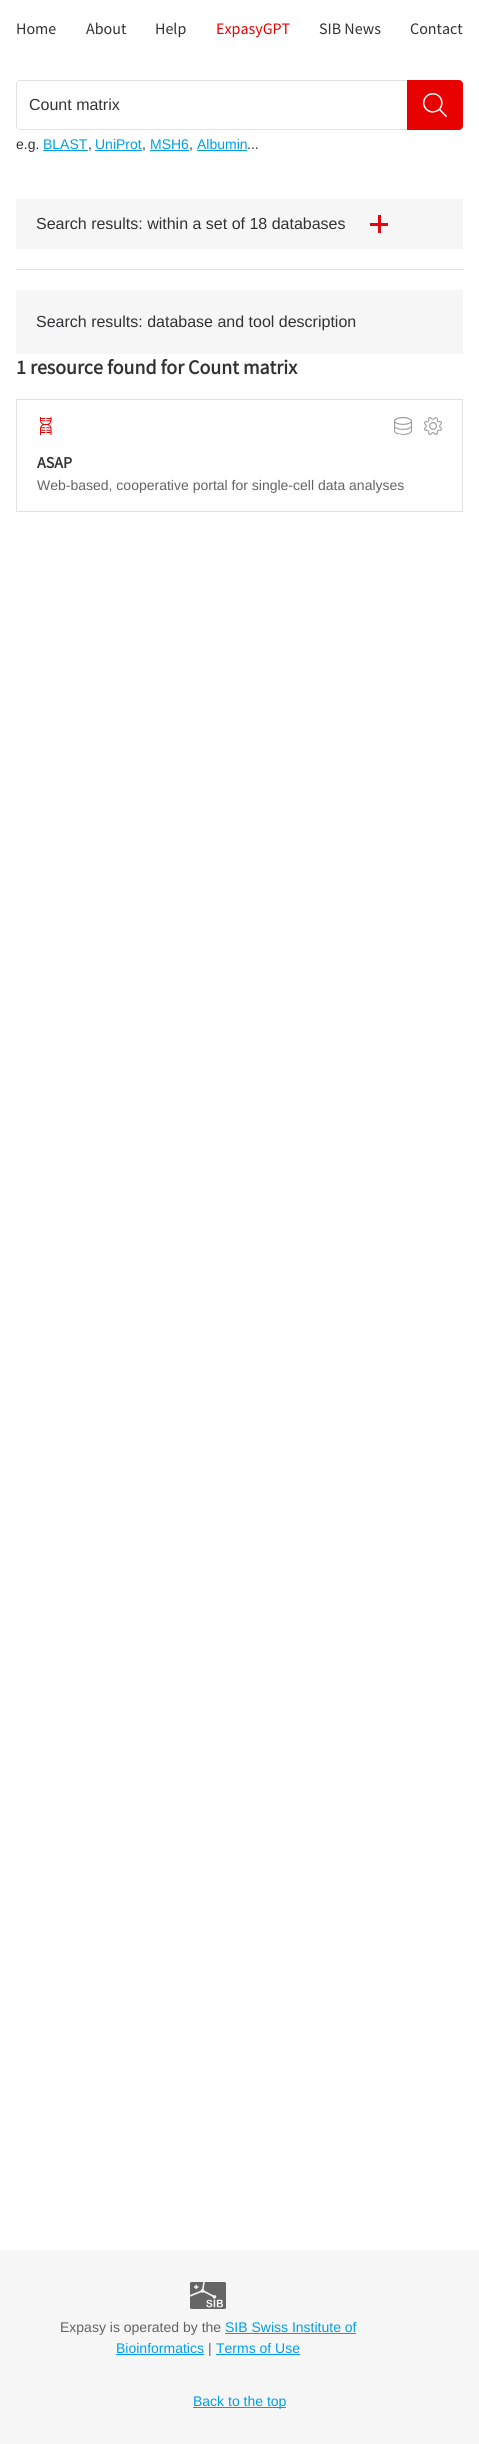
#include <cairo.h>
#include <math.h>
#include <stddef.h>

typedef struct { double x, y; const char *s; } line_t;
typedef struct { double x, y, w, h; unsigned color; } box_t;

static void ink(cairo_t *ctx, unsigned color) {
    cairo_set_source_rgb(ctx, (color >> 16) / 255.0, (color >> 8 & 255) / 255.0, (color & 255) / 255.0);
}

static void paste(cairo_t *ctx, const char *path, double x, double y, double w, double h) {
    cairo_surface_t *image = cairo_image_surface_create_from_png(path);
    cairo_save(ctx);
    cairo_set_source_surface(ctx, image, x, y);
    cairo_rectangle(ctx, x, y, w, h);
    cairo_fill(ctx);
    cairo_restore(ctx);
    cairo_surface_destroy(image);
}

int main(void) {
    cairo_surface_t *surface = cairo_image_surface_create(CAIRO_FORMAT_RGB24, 479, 2444);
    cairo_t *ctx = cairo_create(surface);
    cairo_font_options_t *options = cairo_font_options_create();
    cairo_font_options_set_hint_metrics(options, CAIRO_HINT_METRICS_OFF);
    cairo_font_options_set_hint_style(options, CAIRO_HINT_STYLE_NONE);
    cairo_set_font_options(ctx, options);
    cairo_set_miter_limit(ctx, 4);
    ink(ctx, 0xFFFFFF);
    cairo_paint(ctx);
    cairo_select_font_face(ctx, "Source Sans Pro", CAIRO_FONT_SLANT_NORMAL, CAIRO_FONT_WEIGHT_NORMAL);
    cairo_set_font_size(ctx, 16);
    ink(ctx, 0x313233);
    {
        static const line_t items[] = {
            {16, 34, "Home"},
            {86, 34, "About"},
            {155, 34, "Help"},
        };
        for (size_t i = 0; i < sizeof items / sizeof *items; i++) {
            cairo_move_to(ctx, items[i].x, items[i].y);
            cairo_show_text(ctx, items[i].s);
        }
    }
    ink(ctx, 0xE70100);
    cairo_move_to(ctx, 216, 34);
    cairo_show_text(ctx, "ExpasyGPT");
    ink(ctx, 0x313233);
    cairo_move_to(ctx, 319, 34);
    cairo_show_text(ctx, "SIB News");
    cairo_move_to(ctx, 410, 34);
    cairo_show_text(ctx, "Contact");
    ink(ctx, 0xE1E1E1);
    cairo_set_fill_rule(ctx, CAIRO_FILL_RULE_EVEN_ODD);
    cairo_new_path(ctx);
    cairo_move_to(ctx, 20, 80);
    cairo_line_to(ctx, 407, 80);
    cairo_line_to(ctx, 407, 130);
    cairo_line_to(ctx, 20, 130);
    cairo_curve_to(ctx, 18, 130, 16, 128, 16, 126);
    cairo_line_to(ctx, 16, 84);
    cairo_curve_to(ctx, 16, 82, 18, 80, 20, 80);
    cairo_close_path(ctx);
    cairo_move_to(ctx, 20, 81);
    cairo_line_to(ctx, 407, 81);
    cairo_line_to(ctx, 407, 129);
    cairo_line_to(ctx, 20, 129);
    cairo_curve_to(ctx, 18, 129, 17, 128, 17, 126);
    cairo_line_to(ctx, 17, 84);
    cairo_curve_to(ctx, 17, 82, 18, 81, 20, 81);
    cairo_close_path(ctx);
    cairo_fill(ctx);
    cairo_select_font_face(ctx, "Liberation Sans", CAIRO_FONT_SLANT_NORMAL, CAIRO_FONT_WEIGHT_NORMAL);
    ink(ctx, 0x313233);
    cairo_move_to(ctx, 29, 110);
    cairo_show_text(ctx, "Count matrix");
    ink(ctx, 0xE70100);
    cairo_new_path(ctx);
    cairo_move_to(ctx, 407, 80);
    cairo_line_to(ctx, 459, 80);
    cairo_curve_to(ctx, 461, 80, 463, 82, 463, 84);
    cairo_line_to(ctx, 463, 126);
    cairo_curve_to(ctx, 463, 128, 461, 130, 459, 130);
    cairo_line_to(ctx, 407, 130);
    cairo_close_path(ctx);
    cairo_fill(ctx);
    paste(ctx, "media/1.png", 423, 93, 24, 24);
    cairo_set_font_size(ctx, 14);
    ink(ctx, 0x313233);
    cairo_move_to(ctx, 16, 149);
    cairo_show_text(ctx, "e.g.");
    ink(ctx, 0x009FE7);
    cairo_move_to(ctx, 43, 149);
    cairo_show_text(ctx, "BLAST");
    cairo_rectangle(ctx, 43, 150, 45, 1);
    cairo_fill(ctx);
    ink(ctx, 0x313233);
    cairo_move_to(ctx, 88, 149);
    cairo_show_text(ctx, ",");
    ink(ctx, 0x009FE7);
    cairo_move_to(ctx, 95, 149);
    cairo_show_text(ctx, "UniProt");
    cairo_rectangle(ctx, 95, 150, 47, 1);
    cairo_fill(ctx);
    ink(ctx, 0x313233);
    cairo_move_to(ctx, 142, 149);
    cairo_show_text(ctx, ",");
    ink(ctx, 0x009FE7);
    cairo_move_to(ctx, 150, 149);
    cairo_show_text(ctx, "MSH6");
    cairo_rectangle(ctx, 150, 150, 39, 1);
    cairo_fill(ctx);
    ink(ctx, 0x313233);
    cairo_move_to(ctx, 189, 149);
    cairo_show_text(ctx, ",");
    ink(ctx, 0x009FE7);
    cairo_move_to(ctx, 197, 149);
    cairo_show_text(ctx, "Albumin");
    cairo_rectangle(ctx, 197, 150, 50, 1);
    cairo_fill(ctx);
    ink(ctx, 0x313233);
    cairo_move_to(ctx, 247, 149);
    cairo_show_text(ctx, "...");
    ink(ctx, 0xF6F6F6);
    cairo_rectangle(ctx, 16, 199, 447, 50);
    cairo_fill(ctx);
    cairo_set_font_size(ctx, 16);
    ink(ctx, 0x313233);
    cairo_move_to(ctx, 36, 229);
    cairo_show_text(ctx, "Search results: within a set of 18 databases");
    {
        static const box_t items[] = {
            {378, 215, 3, 18, 0xE30613},
            {370, 223, 18, 3, 0xE30613},
            {16, 269, 447, 1, 0xE1E1E1},
            {16, 290, 447, 64, 0xF6F6F6},
        };
        for (size_t i = 0; i < sizeof items / sizeof *items; i++) {
            ink(ctx, items[i].color);
            cairo_rectangle(ctx, items[i].x, items[i].y, items[i].w, items[i].h);
            cairo_fill(ctx);
        }
    }
    ink(ctx, 0x313233);
    cairo_move_to(ctx, 36, 327);
    cairo_show_text(ctx, "Search results: database and tool description");
    cairo_select_font_face(ctx, "Source Sans Pro", CAIRO_FONT_SLANT_NORMAL, CAIRO_FONT_WEIGHT_BOLD);
    cairo_set_font_size(ctx, 20);
    cairo_move_to(ctx, 16, 374);
    cairo_show_text(ctx, "1 resource found for Count matrix");
    cairo_rectangle(ctx, 16.5, 399.5, 446, 112);
    ink(ctx, 0xE1E1E1);
    cairo_set_line_width(ctx, 1);
    cairo_stroke(ctx);
    paste(ctx, "media/2.png", 40, 417, 12, 18);
    paste(ctx, "media/3.png", 394, 417, 18, 18);
    paste(ctx, "media/4.png", 424, 417, 18, 18);
    cairo_set_font_size(ctx, 16);
    ink(ctx, 0x313233);
    cairo_move_to(ctx, 37, 468);
    cairo_show_text(ctx, "ASAP");
    cairo_select_font_face(ctx, "Liberation Sans", CAIRO_FONT_SLANT_NORMAL, CAIRO_FONT_WEIGHT_NORMAL);
    cairo_set_font_size(ctx, 14);
    ink(ctx, 0x636363);
    cairo_move_to(ctx, 37, 490);
    cairo_show_text(ctx, "Web-based, cooperative portal for single-cell data analyses");
    ink(ctx, 0xF6F6F6);
    cairo_rectangle(ctx, 0, 2250, 479, 194);
    cairo_fill(ctx);
    paste(ctx, "media/5.png", 190, 2282, 36, 27);
    ink(ctx, 0x636363);
    cairo_move_to(ctx, 60, 2332);
    cairo_show_text(ctx, "Expasy is operated by the");
    ink(ctx, 0x009FE7);
    cairo_move_to(ctx, 225, 2332);
    cairo_show_text(ctx, "SIB Swiss Institute of");
    cairo_rectangle(ctx, 225, 2333, 131, 1);
    cairo_fill(ctx);
    cairo_move_to(ctx, 116, 2353);
    cairo_show_text(ctx, "Bioinformatics");
    cairo_rectangle(ctx, 116, 2354, 88, 1);
    cairo_fill(ctx);
    ink(ctx, 0x636363);
    cairo_move_to(ctx, 208, 2353);
    cairo_show_text(ctx, "|");
    ink(ctx, 0x009FE7);
    cairo_move_to(ctx, 216, 2353);
    cairo_show_text(ctx, "Terms of Use");
    cairo_rectangle(ctx, 216, 2354, 84, 1);
    cairo_fill(ctx);
    cairo_rectangle(ctx, 193, 2407, 93, 1);
    cairo_fill(ctx);
    cairo_move_to(ctx, 193, 2406);
    cairo_show_text(ctx, "Back to the top");
    cairo_surface_write_to_png(surface, "image.png");
    cairo_font_options_destroy(options);
    cairo_destroy(ctx);
    cairo_surface_destroy(surface);
    return 0;
}
